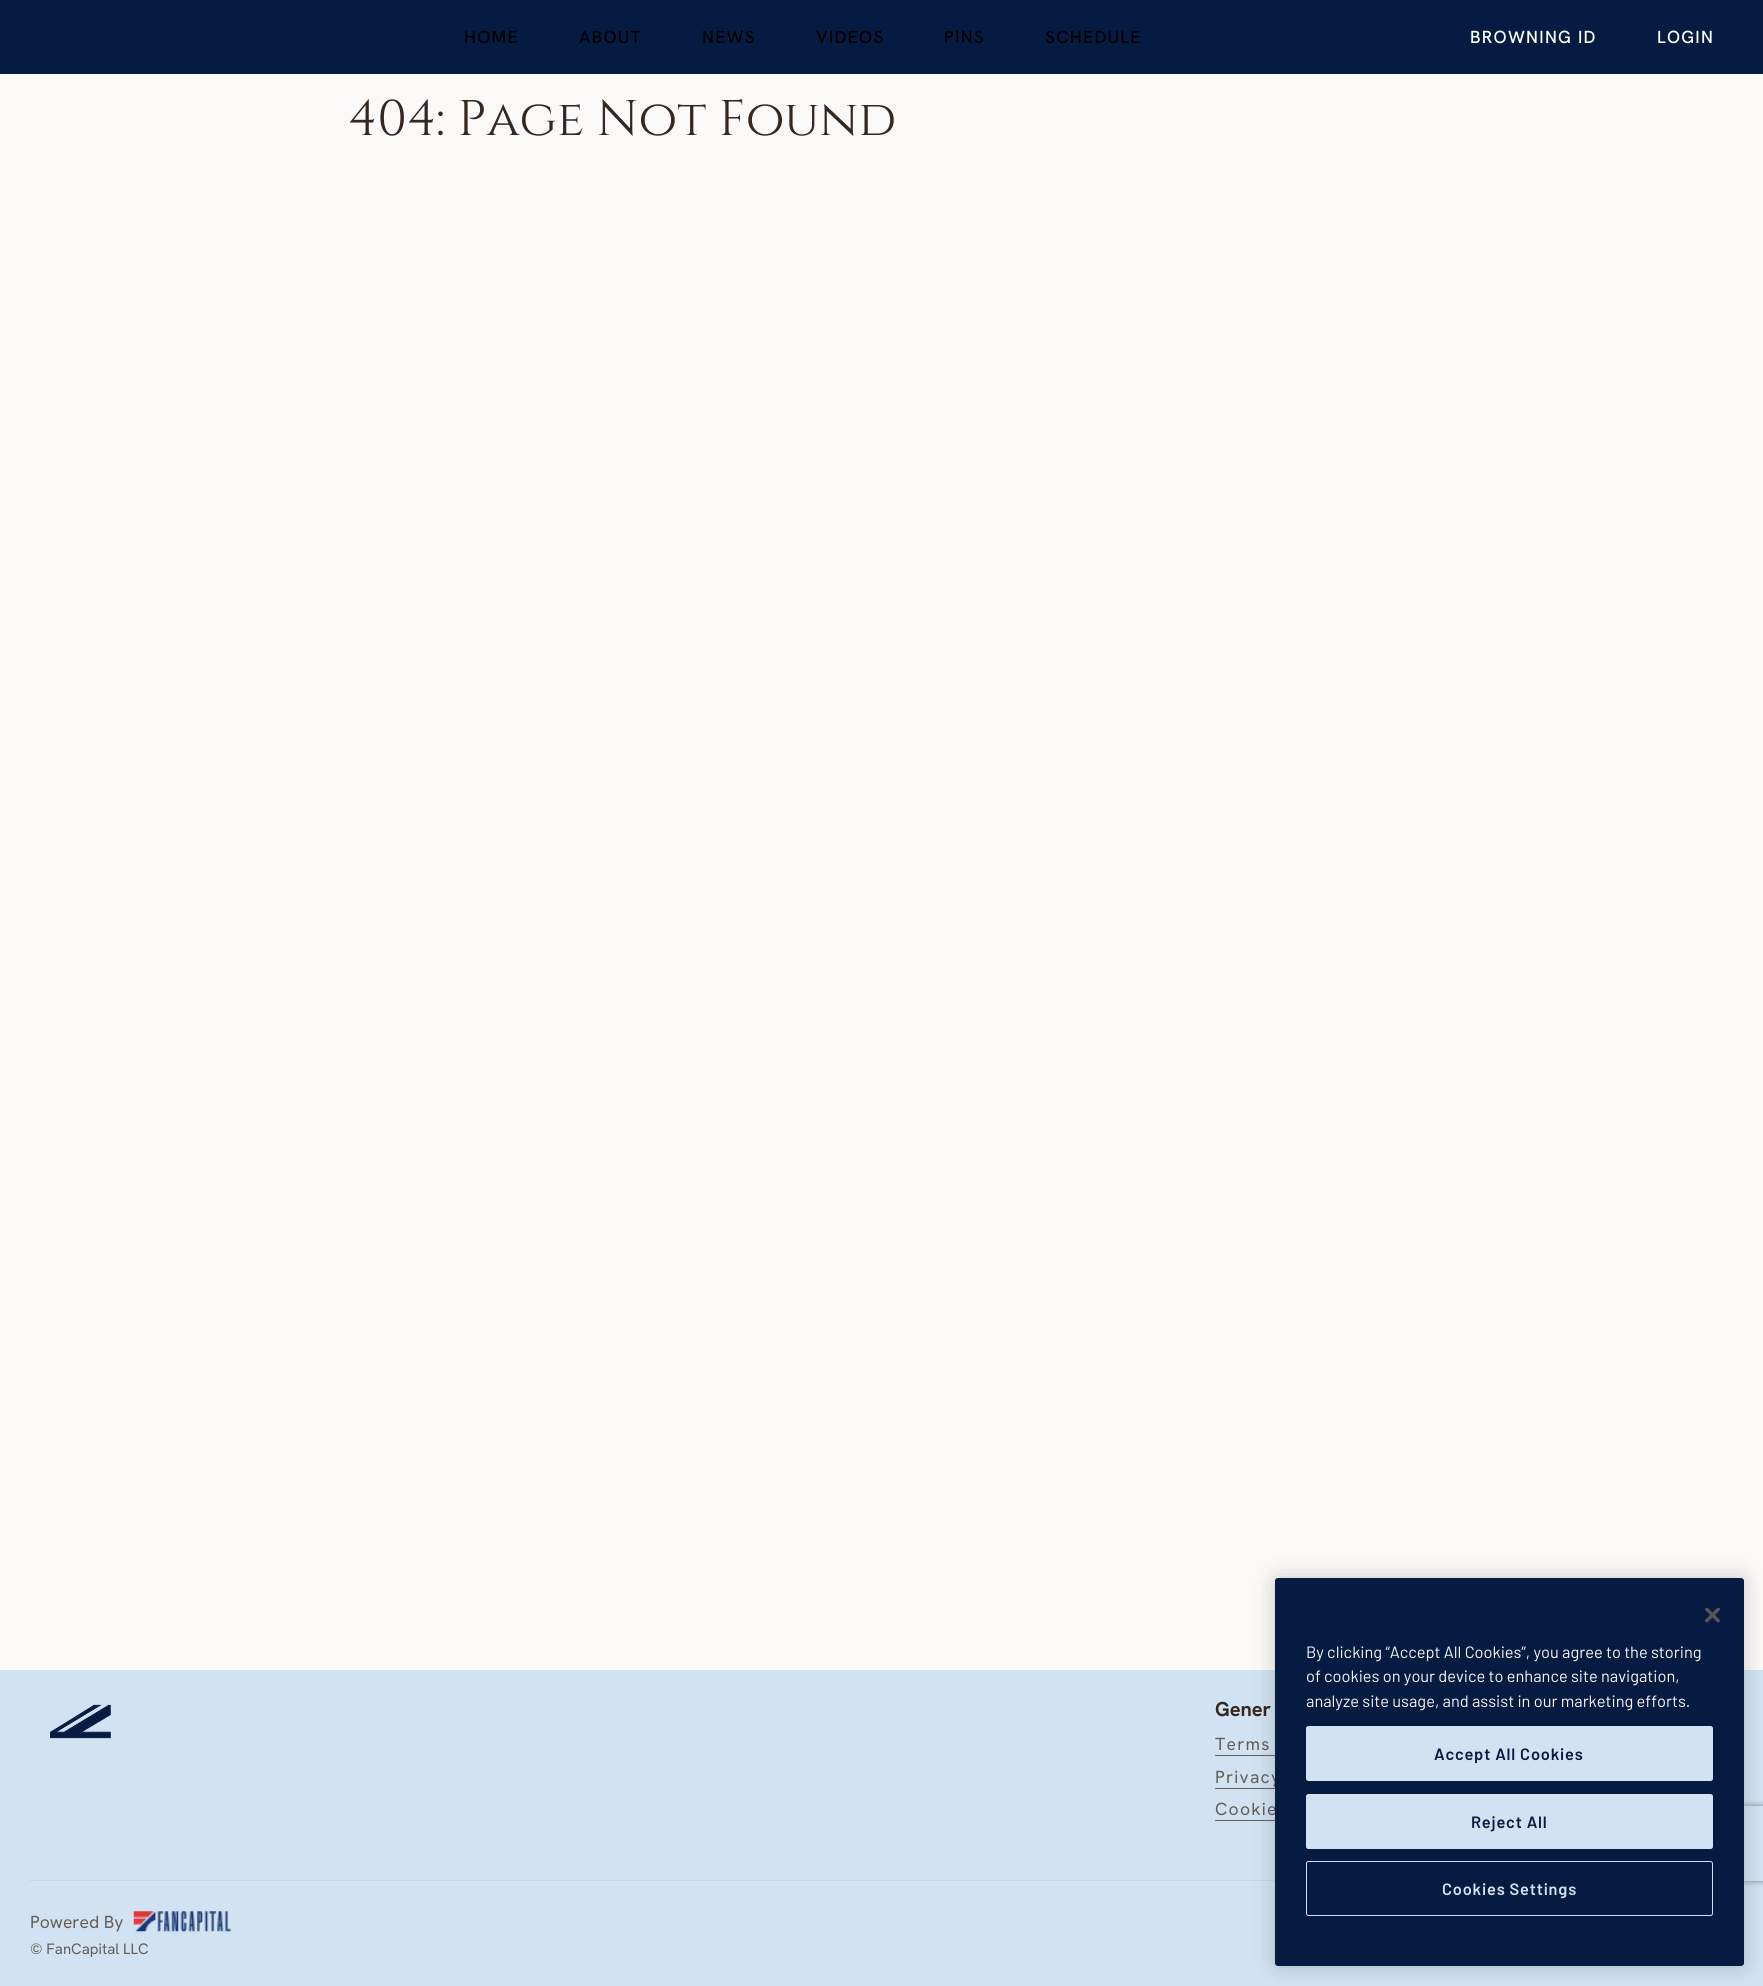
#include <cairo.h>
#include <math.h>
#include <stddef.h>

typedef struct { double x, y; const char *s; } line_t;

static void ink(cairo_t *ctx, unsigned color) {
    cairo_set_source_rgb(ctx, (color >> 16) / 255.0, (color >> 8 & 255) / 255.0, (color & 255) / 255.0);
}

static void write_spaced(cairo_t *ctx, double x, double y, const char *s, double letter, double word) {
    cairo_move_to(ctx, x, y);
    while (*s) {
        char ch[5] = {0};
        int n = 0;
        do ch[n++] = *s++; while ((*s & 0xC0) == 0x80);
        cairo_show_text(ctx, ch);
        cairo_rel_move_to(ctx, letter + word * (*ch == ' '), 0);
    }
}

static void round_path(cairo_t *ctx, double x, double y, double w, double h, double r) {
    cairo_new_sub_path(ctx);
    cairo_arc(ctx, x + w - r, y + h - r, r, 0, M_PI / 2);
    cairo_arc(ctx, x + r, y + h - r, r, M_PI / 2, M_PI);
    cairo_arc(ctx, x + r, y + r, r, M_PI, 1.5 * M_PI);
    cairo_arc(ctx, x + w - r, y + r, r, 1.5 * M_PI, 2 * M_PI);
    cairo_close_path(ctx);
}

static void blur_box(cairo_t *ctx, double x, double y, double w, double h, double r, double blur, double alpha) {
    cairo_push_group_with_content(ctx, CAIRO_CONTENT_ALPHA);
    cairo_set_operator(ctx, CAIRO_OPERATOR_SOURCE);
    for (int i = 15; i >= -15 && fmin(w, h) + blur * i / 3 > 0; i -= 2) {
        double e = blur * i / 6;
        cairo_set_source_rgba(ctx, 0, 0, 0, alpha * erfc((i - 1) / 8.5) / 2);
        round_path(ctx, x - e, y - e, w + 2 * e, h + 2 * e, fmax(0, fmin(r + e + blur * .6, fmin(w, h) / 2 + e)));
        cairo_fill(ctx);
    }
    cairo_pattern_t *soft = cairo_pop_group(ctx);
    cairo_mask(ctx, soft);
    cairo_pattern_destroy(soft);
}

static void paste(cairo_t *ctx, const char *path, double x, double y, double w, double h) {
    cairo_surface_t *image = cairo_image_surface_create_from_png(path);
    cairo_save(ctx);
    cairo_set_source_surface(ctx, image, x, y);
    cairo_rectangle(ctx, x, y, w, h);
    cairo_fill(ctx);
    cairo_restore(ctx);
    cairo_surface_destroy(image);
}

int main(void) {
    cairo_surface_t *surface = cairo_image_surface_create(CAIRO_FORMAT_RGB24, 1763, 1986);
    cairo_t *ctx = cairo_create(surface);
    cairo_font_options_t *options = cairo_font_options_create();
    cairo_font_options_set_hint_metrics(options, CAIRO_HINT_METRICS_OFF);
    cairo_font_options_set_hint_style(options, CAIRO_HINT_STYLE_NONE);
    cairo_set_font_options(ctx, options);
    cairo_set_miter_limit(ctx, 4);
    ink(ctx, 0xFBFAF9);
    cairo_paint(ctx);
    ink(ctx, 0x061B42);
    cairo_rectangle(ctx, 0, 0, 1763, 74);
    cairo_fill(ctx);
    cairo_select_font_face(ctx, "Hanken Grotesk Medium", CAIRO_FONT_SLANT_NORMAL, CAIRO_FONT_WEIGHT_NORMAL);
    cairo_set_font_size(ctx, 17.5);
    ink(ctx, 0x000000);
    {
        static const line_t items[] = {
            {464, 43, "HOME"},
            {579, 43, "ABOUT"},
            {702, 43, "NEWS"},
            {816, 43, "VIDEOS"},
            {944, 43, "PINS"},
            {1045, 43, "SCHEDULE"},
        };
        for (size_t i = 0; i < sizeof items / sizeof *items; i++) {
            write_spaced(ctx, items[i].x, items[i].y, items[i].s, 1.25, 0);
        }
    }
    ink(ctx, 0xFFFFFF);
    write_spaced(ctx, 1470, 43, "BROWNING ID", 1.25, 0);
    write_spaced(ctx, 1657, 43, "LOGIN", 1.25, 0);
    cairo_select_font_face(ctx, "Cinzel", CAIRO_FONT_SLANT_NORMAL, CAIRO_FONT_WEIGHT_NORMAL);
    cairo_set_font_size(ctx, 50);
    ink(ctx, 0x34271F);
    cairo_move_to(ctx, 348, 135);
    cairo_show_text(ctx, "404: Page Not Found");
    ink(ctx, 0xD1E3F2);
    cairo_rectangle(ctx, 0, 1670, 1763, 316);
    cairo_fill(ctx);
    paste(ctx, "media/1.png", 50, 1704, 61, 35);
    cairo_select_font_face(ctx, "Hanken Grotesk", CAIRO_FONT_SLANT_NORMAL, CAIRO_FONT_WEIGHT_BOLD);
    cairo_set_font_size(ctx, 20);
    ink(ctx, 0x34271F);
    cairo_move_to(ctx, 1215, 1716);
    cairo_show_text(ctx, "Gener");
    cairo_select_font_face(ctx, "Hanken Grotesk", CAIRO_FONT_SLANT_NORMAL, CAIRO_FONT_WEIGHT_NORMAL);
    cairo_set_font_size(ctx, 17.5);
    ink(ctx, 0x655C56);
    write_spaced(ctx, 1215, 1750, "Terms", 1.25, 0);
    cairo_rectangle(ctx, 1215, 1755, 60, 1);
    cairo_fill(ctx);
    write_spaced(ctx, 1215, 1783, "Privacy", 1.25, 0);
    cairo_rectangle(ctx, 1215, 1788, 60, 1);
    cairo_fill(ctx);
    write_spaced(ctx, 1215, 1815, "Cookie", 1.25, 0);
    cairo_rectangle(ctx, 1215, 1820, 60, 1);
    cairo_fill(ctx);
    ink(ctx, 0xCBD5E1);
    cairo_rectangle(ctx, 30, 1880, 1245, 1);
    cairo_fill(ctx);
    ink(ctx, 0x655C56);
    cairo_move_to(ctx, 30, 1928);
    cairo_show_text(ctx, "Powered By");
    paste(ctx, "media/2.png", 133, 1911, 99, 21);
    cairo_set_font_size(ctx, 15);
    cairo_move_to(ctx, 30, 1954);
    cairo_show_text(ctx, "© FanCapital LLC");
    ink(ctx, 0x000000);
    blur_box(ctx, 1275, 1578, 469, 388, 3, 11, 0.2);
    cairo_save(ctx);
    cairo_set_fill_rule(ctx, CAIRO_FILL_RULE_EVEN_ODD);
    cairo_new_path(ctx);
    cairo_move_to(ctx, 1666, 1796);
    cairo_line_to(ctx, 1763, 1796);
    cairo_line_to(ctx, 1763, 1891);
    cairo_line_to(ctx, 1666, 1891);
    cairo_close_path(ctx);
    cairo_move_to(ctx, 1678.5, 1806);
    cairo_line_to(ctx, 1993.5, 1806);
    cairo_curve_to(ctx, 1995, 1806, 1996, 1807, 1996, 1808.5);
    cairo_line_to(ctx, 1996, 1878.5);
    cairo_curve_to(ctx, 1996, 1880, 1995, 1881, 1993.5, 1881);
    cairo_line_to(ctx, 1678.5, 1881);
    cairo_curve_to(ctx, 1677, 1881, 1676, 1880, 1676, 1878.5);
    cairo_line_to(ctx, 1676, 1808.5);
    cairo_curve_to(ctx, 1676, 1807, 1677, 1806, 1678.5, 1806);
    cairo_close_path(ctx);
    cairo_clip(ctx);
    ink(ctx, 0x808080);
    blur_box(ctx, 1676, 1806, 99, 75, 2.5, 3, 1);
    cairo_restore(ctx);
    ink(ctx, 0x061B42);
    round_path(ctx, 1275, 1578, 469, 388, 3);
    cairo_fill(ctx);
    paste(ctx, "media/3.png", 1705, 1608, 15, 15);
    cairo_select_font_face(ctx, "Barlow", CAIRO_FONT_SLANT_NORMAL, CAIRO_FONT_WEIGHT_NORMAL);
    cairo_set_font_size(ctx, 16.4);
    ink(ctx, 0xF6F5F2);
    {
        static const line_t items[] = {
            {1306, 1658, "By clicking “Accept All Cookies”, you agree to the storing"},
            {1306, 1682, "of cookies on your device to enhance site navigation,"},
            {1306, 1707, "analyze site usage, and assist in our marketing efforts."},
        };
        for (size_t i = 0; i < sizeof items / sizeof *items; i++) {
            cairo_move_to(ctx, items[i].x, items[i].y);
            cairo_show_text(ctx, items[i].s);
        }
    }
    ink(ctx, 0xD1E3F2);
    round_path(ctx, 1306.5, 1726.5, 406, 54, 2);
    cairo_fill_preserve(ctx);
    cairo_set_line_width(ctx, 1);
    cairo_stroke(ctx);
    cairo_select_font_face(ctx, "Barlow SemiBold", CAIRO_FONT_SLANT_NORMAL, CAIRO_FONT_WEIGHT_NORMAL);
    ink(ctx, 0x061B42);
    write_spaced(ctx, 1434, 1760, "Accept All Cookies", 0.8, 0);
    ink(ctx, 0xD1E3F2);
    round_path(ctx, 1306.5, 1794.5, 406, 54, 2);
    cairo_fill_preserve(ctx);
    cairo_stroke(ctx);
    ink(ctx, 0x061B42);
    write_spaced(ctx, 1471, 1828, "Reject All", 0.8, 0);
    round_path(ctx, 1306.5, 1861.5, 406, 54, 2);
    ink(ctx, 0xD1E3F2);
    cairo_stroke(ctx);
    write_spaced(ctx, 1442, 1895, "Cookies Settings", 0.8, 0);
    cairo_surface_write_to_png(surface, "image.png");
    cairo_font_options_destroy(options);
    cairo_destroy(ctx);
    cairo_surface_destroy(surface);
    return 0;
}
